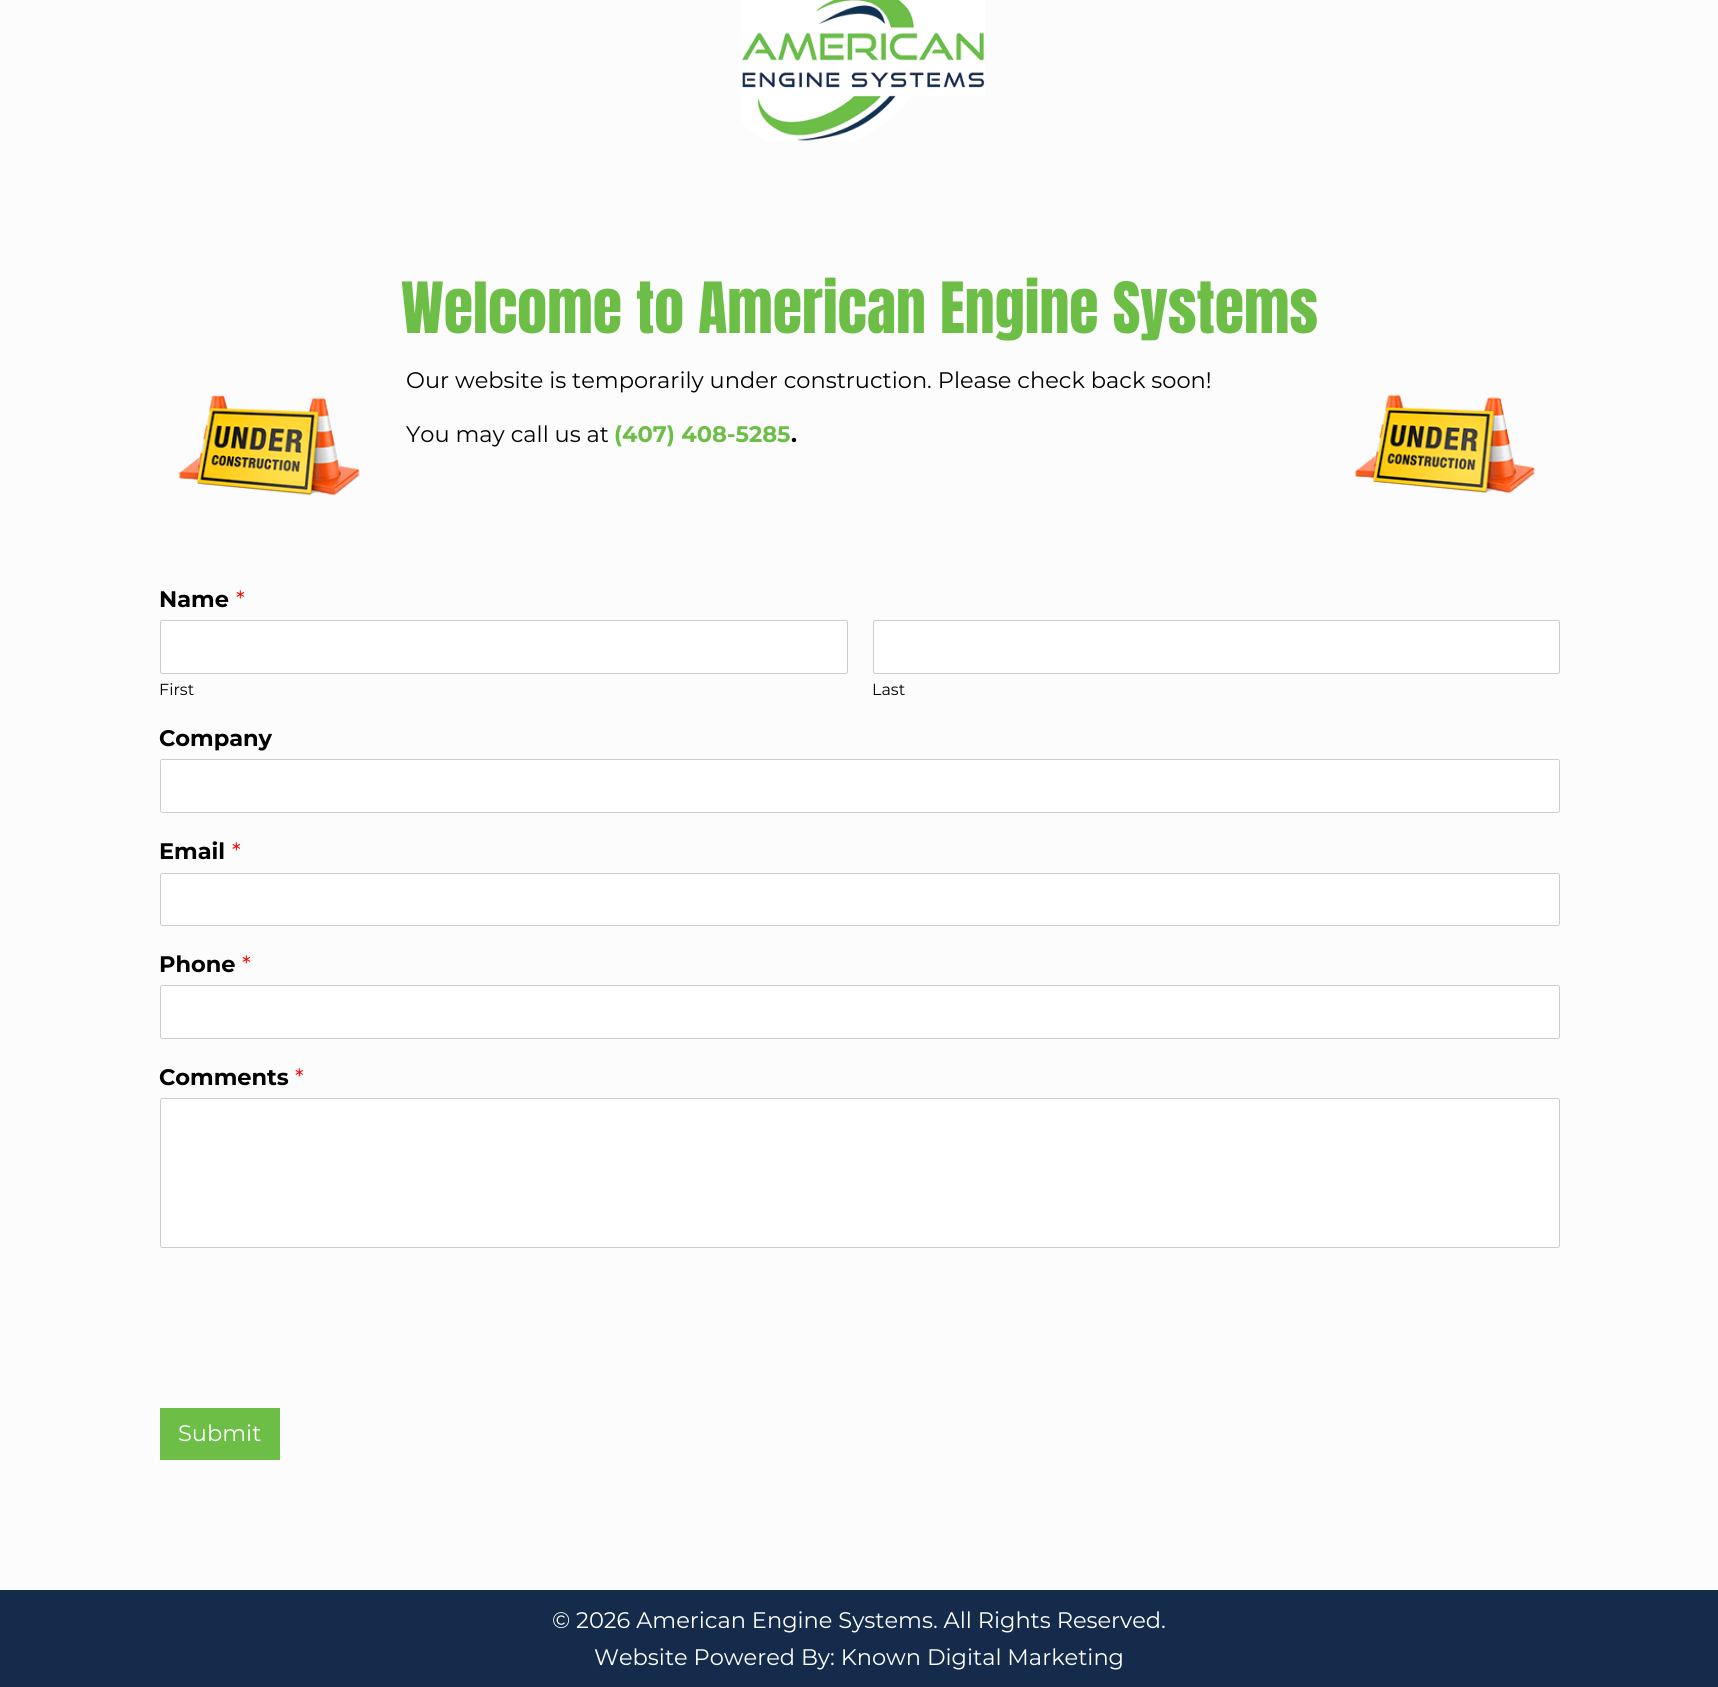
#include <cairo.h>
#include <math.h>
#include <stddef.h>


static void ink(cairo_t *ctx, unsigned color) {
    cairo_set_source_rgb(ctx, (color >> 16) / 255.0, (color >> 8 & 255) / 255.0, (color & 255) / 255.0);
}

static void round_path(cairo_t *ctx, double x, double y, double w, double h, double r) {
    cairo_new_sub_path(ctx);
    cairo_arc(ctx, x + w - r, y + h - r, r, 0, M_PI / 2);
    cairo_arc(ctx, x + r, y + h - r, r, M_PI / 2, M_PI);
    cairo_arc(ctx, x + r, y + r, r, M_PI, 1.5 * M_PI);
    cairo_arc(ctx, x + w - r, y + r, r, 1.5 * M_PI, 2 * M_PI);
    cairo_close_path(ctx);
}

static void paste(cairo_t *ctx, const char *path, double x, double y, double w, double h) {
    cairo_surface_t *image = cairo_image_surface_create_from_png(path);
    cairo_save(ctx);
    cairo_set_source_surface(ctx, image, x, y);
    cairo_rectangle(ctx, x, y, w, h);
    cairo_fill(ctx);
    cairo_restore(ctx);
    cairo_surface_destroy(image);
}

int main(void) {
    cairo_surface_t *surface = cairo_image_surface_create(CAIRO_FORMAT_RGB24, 1718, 1687);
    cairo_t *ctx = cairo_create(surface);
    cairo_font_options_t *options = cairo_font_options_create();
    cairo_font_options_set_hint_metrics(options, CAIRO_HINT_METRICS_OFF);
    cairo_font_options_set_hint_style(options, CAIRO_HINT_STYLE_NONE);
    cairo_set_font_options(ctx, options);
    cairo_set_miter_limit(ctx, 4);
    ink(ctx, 0xFCFCFC);
    cairo_paint(ctx);
    paste(ctx, "media/1.png", 742, 0, 243, 141);
    cairo_select_font_face(ctx, "Anton", CAIRO_FONT_SLANT_NORMAL, CAIRO_FONT_WEIGHT_NORMAL);
    cairo_set_font_size(ctx, 60);
    ink(ctx, 0x6CBE46);
    cairo_move_to(ctx, 401, 333);
    cairo_show_text(ctx, "Welcome to American Engine Systems");
    paste(ctx, "media/2.png", 178, 395, 182, 101);
    cairo_select_font_face(ctx, "Montserrat", CAIRO_FONT_SLANT_NORMAL, CAIRO_FONT_WEIGHT_NORMAL);
    cairo_set_font_size(ctx, 22.5);
    ink(ctx, 0x000000);
    cairo_move_to(ctx, 406, 388);
    cairo_show_text(ctx, "Our website is temporarily under construction. Please check back soon!");
    cairo_move_to(ctx, 406, 442);
    cairo_show_text(ctx, "You may call us at");
    cairo_select_font_face(ctx, "Montserrat", CAIRO_FONT_SLANT_NORMAL, CAIRO_FONT_WEIGHT_BOLD);
    ink(ctx, 0x6CBE46);
    cairo_move_to(ctx, 614, 442);
    cairo_show_text(ctx, "(407) 408-5285");
    ink(ctx, 0x000000);
    cairo_move_to(ctx, 791, 442);
    cairo_show_text(ctx, ".");
    paste(ctx, "media/3.png", 1354, 394, 182, 100);
    cairo_move_to(ctx, 159, 607);
    cairo_show_text(ctx, "Name");
    cairo_select_font_face(ctx, "Montserrat", CAIRO_FONT_SLANT_NORMAL, CAIRO_FONT_WEIGHT_NORMAL);
    ink(ctx, 0xFF0000);
    cairo_move_to(ctx, 236, 607);
    cairo_show_text(ctx, "*");
    ink(ctx, 0xFFFFFF);
    round_path(ctx, 160.5, 620.5, 687, 53, 2);
    cairo_fill_preserve(ctx);
    ink(ctx, 0xCCCCCC);
    cairo_set_line_width(ctx, 1);
    cairo_stroke(ctx);
    cairo_set_font_size(ctx, 16);
    ink(ctx, 0x000000);
    cairo_move_to(ctx, 159, 695);
    cairo_show_text(ctx, "First");
    ink(ctx, 0xFFFFFF);
    round_path(ctx, 873.5, 620.5, 686, 53, 2);
    cairo_fill_preserve(ctx);
    ink(ctx, 0xCCCCCC);
    cairo_stroke(ctx);
    ink(ctx, 0x000000);
    cairo_move_to(ctx, 872, 695);
    cairo_show_text(ctx, "Last");
    cairo_select_font_face(ctx, "Montserrat", CAIRO_FONT_SLANT_NORMAL, CAIRO_FONT_WEIGHT_BOLD);
    cairo_set_font_size(ctx, 22.5);
    cairo_move_to(ctx, 159, 746);
    cairo_show_text(ctx, "Company");
    ink(ctx, 0xFFFFFF);
    round_path(ctx, 160.5, 759.5, 1399, 53, 2);
    cairo_fill_preserve(ctx);
    ink(ctx, 0xCCCCCC);
    cairo_stroke(ctx);
    ink(ctx, 0x000000);
    cairo_move_to(ctx, 159, 859);
    cairo_show_text(ctx, "Email");
    cairo_select_font_face(ctx, "Montserrat", CAIRO_FONT_SLANT_NORMAL, CAIRO_FONT_WEIGHT_NORMAL);
    ink(ctx, 0xFF0000);
    cairo_move_to(ctx, 232, 859);
    cairo_show_text(ctx, "*");
    ink(ctx, 0xFFFFFF);
    round_path(ctx, 160.5, 873.5, 1399, 52, 2);
    cairo_fill_preserve(ctx);
    ink(ctx, 0xCCCCCC);
    cairo_stroke(ctx);
    cairo_select_font_face(ctx, "Montserrat", CAIRO_FONT_SLANT_NORMAL, CAIRO_FONT_WEIGHT_BOLD);
    ink(ctx, 0x000000);
    cairo_move_to(ctx, 159, 972);
    cairo_show_text(ctx, "Phone");
    cairo_select_font_face(ctx, "Montserrat", CAIRO_FONT_SLANT_NORMAL, CAIRO_FONT_WEIGHT_NORMAL);
    ink(ctx, 0xFF0000);
    cairo_move_to(ctx, 242, 972);
    cairo_show_text(ctx, "*");
    ink(ctx, 0xFFFFFF);
    round_path(ctx, 160.5, 985.5, 1399, 53, 2);
    cairo_fill_preserve(ctx);
    ink(ctx, 0xCCCCCC);
    cairo_stroke(ctx);
    cairo_select_font_face(ctx, "Montserrat", CAIRO_FONT_SLANT_NORMAL, CAIRO_FONT_WEIGHT_BOLD);
    ink(ctx, 0x000000);
    cairo_move_to(ctx, 159, 1085);
    cairo_show_text(ctx, "Comments");
    cairo_select_font_face(ctx, "Montserrat", CAIRO_FONT_SLANT_NORMAL, CAIRO_FONT_WEIGHT_NORMAL);
    ink(ctx, 0xFF0000);
    cairo_move_to(ctx, 295, 1085);
    cairo_show_text(ctx, "*");
    ink(ctx, 0xFFFFFF);
    round_path(ctx, 160.5, 1098.5, 1399, 149, 2);
    cairo_fill_preserve(ctx);
    ink(ctx, 0xCCCCCC);
    cairo_stroke(ctx);
    ink(ctx, 0x6CBE46);
    cairo_rectangle(ctx, 160, 1408, 120, 52);
    cairo_fill(ctx);
    ink(ctx, 0xFFFFFF);
    cairo_move_to(ctx, 178, 1441);
    cairo_show_text(ctx, "Submit");
    ink(ctx, 0x142B4C);
    cairo_rectangle(ctx, 0, 1590, 1718, 97);
    cairo_fill(ctx);
    ink(ctx, 0xFFFFFF);
    cairo_move_to(ctx, 552, 1628);
    cairo_show_text(ctx, "© 2026 American Engine Systems. All Rights Reserved.");
    cairo_move_to(ctx, 594, 1665);
    cairo_show_text(ctx, "Website Powered By: Known Digital Marketing");
    cairo_surface_write_to_png(surface, "image.png");
    cairo_font_options_destroy(options);
    cairo_destroy(ctx);
    cairo_surface_destroy(surface);
    return 0;
}
